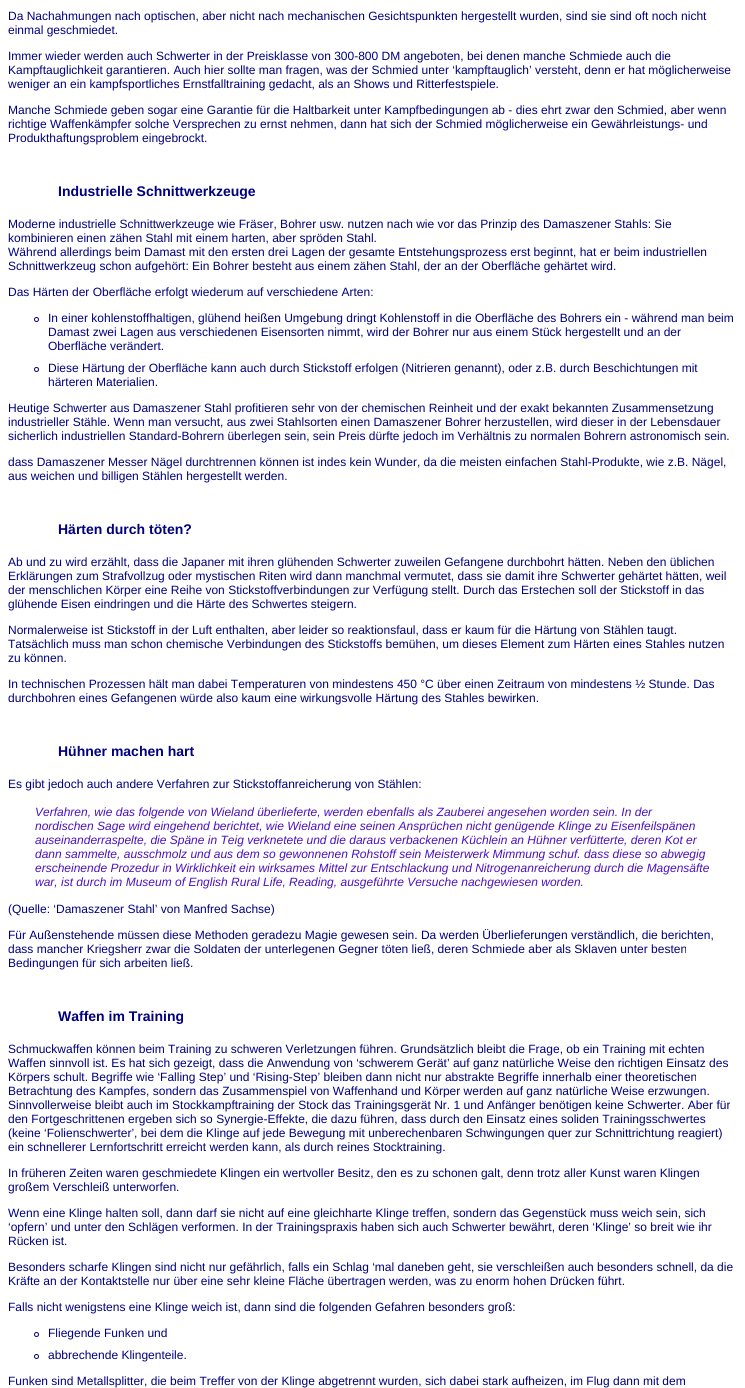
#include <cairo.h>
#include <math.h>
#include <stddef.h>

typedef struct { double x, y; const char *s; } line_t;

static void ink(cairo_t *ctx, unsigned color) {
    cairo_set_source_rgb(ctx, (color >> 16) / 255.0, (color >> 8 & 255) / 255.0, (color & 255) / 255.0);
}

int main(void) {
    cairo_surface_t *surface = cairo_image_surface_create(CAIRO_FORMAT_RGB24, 745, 1388);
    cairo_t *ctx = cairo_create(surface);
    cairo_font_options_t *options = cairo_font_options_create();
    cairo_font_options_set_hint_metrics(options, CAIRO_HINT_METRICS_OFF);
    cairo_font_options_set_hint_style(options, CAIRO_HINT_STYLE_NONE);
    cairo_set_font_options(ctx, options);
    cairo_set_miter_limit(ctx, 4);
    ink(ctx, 0xFFFFFF);
    cairo_paint(ctx);
    cairo_select_font_face(ctx, "Liberation Sans", CAIRO_FONT_SLANT_NORMAL, CAIRO_FONT_WEIGHT_NORMAL);
    cairo_set_font_size(ctx, 12);
    ink(ctx, 0x000080);
    {
        static const line_t items[] = {
            {8, 20, "Da Nachahmungen nach optischen, aber nicht nach mechanischen Gesichtspunkten hergestellt wurden, sind sie sind oft noch nicht"},
            {8, 34, "einmal geschmiedet."},
            {8, 60, "Immer wieder werden auch Schwerter in der Preisklasse von 300-800 DM angeboten, bei denen manche Schmiede auch die"},
            {8, 74, "Kampftauglichkeit garantieren. Auch hier sollte man fragen, was der Schmied unter ‘kampftauglich’ versteht, denn er hat möglicherweise"},
            {8, 88, "weniger an ein kampfsportliches Ernstfalltraining gedacht, als an Shows und Ritterfestspiele."},
            {8, 114, "Manche Schmiede geben sogar eine Garantie für die Haltbarkeit unter Kampfbedingungen ab - dies ehrt zwar den Schmied, aber wenn"},
            {8, 128, "richtige Waffenkämpfer solche Versprechen zu ernst nehmen, dann hat sich der Schmied möglicherweise ein Gewährleistungs- und"},
            {8, 142, "Produkthaftungsproblem eingebrockt."},
        };
        for (size_t i = 0; i < sizeof items / sizeof *items; i++) {
            cairo_move_to(ctx, items[i].x, items[i].y);
            cairo_show_text(ctx, items[i].s);
        }
    }
    cairo_select_font_face(ctx, "Liberation Sans", CAIRO_FONT_SLANT_NORMAL, CAIRO_FONT_WEIGHT_BOLD);
    cairo_set_font_size(ctx, 14);
    cairo_move_to(ctx, 58, 196);
    cairo_show_text(ctx, "Industrielle Schnittwerkzeuge");
    cairo_select_font_face(ctx, "Liberation Sans", CAIRO_FONT_SLANT_NORMAL, CAIRO_FONT_WEIGHT_NORMAL);
    cairo_set_font_size(ctx, 12);
    {
        static const line_t items[] = {
            {8, 228, "Moderne industrielle Schnittwerkzeuge wie Fräser, Bohrer usw. nutzen nach wie vor das Prinzip des Damaszener Stahls: Sie"},
            {8, 242, "kombinieren einen zähen Stahl mit einem harten, aber spröden Stahl."},
            {8, 256, "Während allerdings beim Damast mit den ersten drei Lagen der gesamte Entstehungsprozess erst beginnt, hat er beim industriellen"},
            {8, 270, "Schnittwerkzeug schon aufgehört: Ein Bohrer besteht aus einem zähen Stahl, der an der Oberfläche gehärtet wird."},
            {8, 296, "Das Härten der Oberfläche erfolgt wiederum auf verschiedene Arten:"},
        };
        for (size_t i = 0; i < sizeof items / sizeof *items; i++) {
            cairo_move_to(ctx, items[i].x, items[i].y);
            cairo_show_text(ctx, items[i].s);
        }
    }
    cairo_new_path(ctx);
    cairo_arc(ctx, 36.5, 319.5, 2, 0, 2 * M_PI);
    cairo_set_line_width(ctx, 1);
    cairo_stroke(ctx);
    {
        static const line_t items[] = {
            {48, 322, "In einer kohlenstoffhaltigen, glühend heißen Umgebung dringt Kohlenstoff in die Oberfläche des Bohrers ein - während man beim"},
            {48, 336, "Damast zwei Lagen aus verschiedenen Eisensorten nimmt, wird der Bohrer nur aus einem Stück hergestellt und an der"},
            {48, 350, "Oberfläche verändert."},
        };
        for (size_t i = 0; i < sizeof items / sizeof *items; i++) {
            cairo_move_to(ctx, items[i].x, items[i].y);
            cairo_show_text(ctx, items[i].s);
        }
    }
    cairo_new_path(ctx);
    cairo_arc(ctx, 36.5, 369.5, 2, 0, 2 * M_PI);
    cairo_stroke(ctx);
    {
        static const line_t items[] = {
            {48, 372, "Diese Härtung der Oberfläche kann auch durch Stickstoff erfolgen (Nitrieren genannt), oder z.B. durch Beschichtungen mit"},
            {48, 386, "härteren Materialien."},
            {8, 412, "Heutige Schwerter aus Damaszener Stahl profitieren sehr von der chemischen Reinheit und der exakt bekannten Zusammensetzung"},
            {8, 426, "industrieller Stähle. Wenn man versucht, aus zwei Stahlsorten einen Damaszener Bohrer herzustellen, wird dieser in der Lebensdauer"},
            {8, 440, "sicherlich industriellen Standard-Bohrern überlegen sein, sein Preis dürfte jedoch im Verhältnis zu normalen Bohrern astronomisch sein."},
            {8, 466, "dass Damaszener Messer Nägel durchtrennen können ist indes kein Wunder, da die meisten einfachen Stahl-Produkte, wie z.B. Nägel,"},
            {8, 480, "aus weichen und billigen Stählen hergestellt werden."},
        };
        for (size_t i = 0; i < sizeof items / sizeof *items; i++) {
            cairo_move_to(ctx, items[i].x, items[i].y);
            cairo_show_text(ctx, items[i].s);
        }
    }
    cairo_select_font_face(ctx, "Liberation Sans", CAIRO_FONT_SLANT_NORMAL, CAIRO_FONT_WEIGHT_BOLD);
    cairo_set_font_size(ctx, 14);
    cairo_move_to(ctx, 58, 534);
    cairo_show_text(ctx, "Härten durch töten?");
    cairo_select_font_face(ctx, "Liberation Sans", CAIRO_FONT_SLANT_NORMAL, CAIRO_FONT_WEIGHT_NORMAL);
    cairo_set_font_size(ctx, 12);
    {
        static const line_t items[] = {
            {8, 566, "Ab und zu wird erzählt, dass die Japaner mit ihren glühenden Schwerter zuweilen Gefangene durchbohrt hätten. Neben den üblichen"},
            {8, 580, "Erklärungen zum Strafvollzug oder mystischen Riten wird dann manchmal vermutet, dass sie damit ihre Schwerter gehärtet hätten, weil"},
            {8, 594, "der menschlichen Körper eine Reihe von Stickstoffverbindungen zur Verfügung stellt. Durch das Erstechen soll der Stickstoff in das"},
            {8, 608, "glühende Eisen eindringen und die Härte des Schwertes steigern."},
            {8, 634, "Normalerweise ist Stickstoff in der Luft enthalten, aber leider so reaktionsfaul, dass er kaum für die Härtung von Stählen taugt."},
            {8, 648, "Tatsächlich muss man schon chemische Verbindungen des Stickstoffs bemühen, um dieses Element zum Härten eines Stahles nutzen"},
            {8, 662, "zu können."},
            {8, 688, "In technischen Prozessen hält man dabei Temperaturen von mindestens 450 °C über einen Zeitraum von mindestens ½ Stunde. Das"},
            {8, 702, "durchbohren eines Gefangenen würde also kaum eine wirkungsvolle Härtung des Stahles bewirken."},
        };
        for (size_t i = 0; i < sizeof items / sizeof *items; i++) {
            cairo_move_to(ctx, items[i].x, items[i].y);
            cairo_show_text(ctx, items[i].s);
        }
    }
    cairo_select_font_face(ctx, "Liberation Sans", CAIRO_FONT_SLANT_NORMAL, CAIRO_FONT_WEIGHT_BOLD);
    cairo_set_font_size(ctx, 14);
    cairo_move_to(ctx, 58, 756);
    cairo_show_text(ctx, "Hühner machen hart");
    cairo_select_font_face(ctx, "Liberation Sans", CAIRO_FONT_SLANT_NORMAL, CAIRO_FONT_WEIGHT_NORMAL);
    cairo_set_font_size(ctx, 12);
    cairo_move_to(ctx, 8, 788);
    cairo_show_text(ctx, "Es gibt jedoch auch andere Verfahren zur Stickstoffanreicherung von Stählen:");
    cairo_select_font_face(ctx, "Liberation Sans", CAIRO_FONT_SLANT_ITALIC, CAIRO_FONT_WEIGHT_NORMAL);
    ink(ctx, 0x4A11C1);
    {
        static const line_t items[] = {
            {35, 816, "Verfahren, wie das folgende von Wieland überlieferte, werden ebenfalls als Zauberei angesehen worden sein. In der"},
            {35, 830, "nordischen Sage wird eingehend berichtet, wie Wieland eine seinen Ansprüchen nicht genügende Klinge zu Eisenfeilspänen"},
            {35, 844, "auseinanderraspelte, die Späne in Teig verknetete und die daraus verbackenen Küchlein an Hühner verfütterte, deren Kot er"},
            {35, 858, "dann sammelte, ausschmolz und aus dem so gewonnenen Rohstoff sein Meisterwerk Mimmung schuf. dass diese so abwegig"},
            {35, 872, "erscheinende Prozedur in Wirklichkeit ein wirksames Mittel zur Entschlackung und Nitrogenanreicherung durch die Magensäfte"},
            {35, 886, "war, ist durch im Museum of English Rural Life, Reading, ausgeführte Versuche nachgewiesen worden."},
        };
        for (size_t i = 0; i < sizeof items / sizeof *items; i++) {
            cairo_move_to(ctx, items[i].x, items[i].y);
            cairo_show_text(ctx, items[i].s);
        }
    }
    cairo_select_font_face(ctx, "Liberation Sans", CAIRO_FONT_SLANT_NORMAL, CAIRO_FONT_WEIGHT_NORMAL);
    ink(ctx, 0x000080);
    {
        static const line_t items[] = {
            {8, 913, "(Quelle: ‘Damaszener Stahl’ von Manfred Sachse)"},
            {8, 939, "Für Außenstehende müssen diese Methoden geradezu Magie gewesen sein. Da werden Überlieferungen verständlich, die berichten,"},
            {8, 953, "dass mancher Kriegsherr zwar die Soldaten der unterlegenen Gegner töten ließ, deren Schmiede aber als Sklaven unter besten"},
            {8, 967, "Bedingungen für sich arbeiten ließ."},
        };
        for (size_t i = 0; i < sizeof items / sizeof *items; i++) {
            cairo_move_to(ctx, items[i].x, items[i].y);
            cairo_show_text(ctx, items[i].s);
        }
    }
    cairo_select_font_face(ctx, "Liberation Sans", CAIRO_FONT_SLANT_NORMAL, CAIRO_FONT_WEIGHT_BOLD);
    cairo_set_font_size(ctx, 14);
    cairo_move_to(ctx, 58, 1021);
    cairo_show_text(ctx, "Waffen im Training");
    cairo_select_font_face(ctx, "Liberation Sans", CAIRO_FONT_SLANT_NORMAL, CAIRO_FONT_WEIGHT_NORMAL);
    cairo_set_font_size(ctx, 12);
    {
        static const line_t items[] = {
            {8, 1053, "Schmuckwaffen können beim Training zu schweren Verletzungen führen. Grundsätzlich bleibt die Frage, ob ein Training mit echten"},
            {8, 1067, "Waffen sinnvoll ist. Es hat sich gezeigt, dass die Anwendung von ‘schwerem Gerät’ auf ganz natürliche Weise den richtigen Einsatz des"},
            {8, 1081, "Körpers schult. Begriffe wie ‘Falling Step’ und ‘Rising-Step’ bleiben dann nicht nur abstrakte Begriffe innerhalb einer theoretischen"},
            {8, 1095, "Betrachtung des Kampfes, sondern das Zusammenspiel von Waffenhand und Körper werden auf ganz natürliche Weise erzwungen."},
            {8, 1109, "Sinnvollerweise bleibt auch im Stockkampftraining der Stock das Trainingsgerät Nr. 1 und Anfänger benötigen keine Schwerter. Aber für"},
            {8, 1123, "den Fortgeschrittenen ergeben sich so Synergie-Effekte, die dazu führen, dass durch den Einsatz eines soliden Trainingsschwertes"},
            {8, 1137, "(keine ‘Folienschwerter’, bei dem die Klinge auf jede Bewegung mit unberechenbaren Schwingungen quer zur Schnittrichtung reagiert)"},
            {8, 1151, "ein schnellerer Lernfortschritt erreicht werden kann, als durch reines Stocktraining."},
            {8, 1177, "In früheren Zeiten waren geschmiedete Klingen ein wertvoller Besitz, den es zu schonen galt, denn trotz aller Kunst waren Klingen"},
            {8, 1191, "großem Verschleiß unterworfen."},
            {8, 1217, "Wenn eine Klinge halten soll, dann darf sie nicht auf eine gleichharte Klinge treffen, sondern das Gegenstück muss weich sein, sich"},
            {8, 1231, "‘opfern’ und unter den Schlägen verformen. In der Trainingspraxis haben sich auch Schwerter bewährt, deren ‘Klinge’ so breit wie ihr"},
            {8, 1245, "Rücken ist."},
            {8, 1271, "Besonders scharfe Klingen sind nicht nur gefährlich, falls ein Schlag ‘mal daneben geht, sie verschleißen auch besonders schnell, da die"},
            {8, 1285, "Kräfte an der Kontaktstelle nur über eine sehr kleine Fläche übertragen werden, was zu enorm hohen Drücken führt."},
            {8, 1311, "Falls nicht wenigstens eine Klinge weich ist, dann sind die folgenden Gefahren besonders groß:"},
        };
        for (size_t i = 0; i < sizeof items / sizeof *items; i++) {
            cairo_move_to(ctx, items[i].x, items[i].y);
            cairo_show_text(ctx, items[i].s);
        }
    }
    cairo_new_path(ctx);
    cairo_arc(ctx, 36.5, 1334.5, 2, 0, 2 * M_PI);
    cairo_stroke(ctx);
    cairo_move_to(ctx, 48, 1337);
    cairo_show_text(ctx, "Fliegende Funken und");
    cairo_new_path(ctx);
    cairo_arc(ctx, 36.5, 1356.5, 2, 0, 2 * M_PI);
    cairo_stroke(ctx);
    cairo_move_to(ctx, 48, 1359);
    cairo_show_text(ctx, "abbrechende Klingenteile.");
    cairo_move_to(ctx, 8, 1385);
    cairo_show_text(ctx, "Funken sind Metallsplitter, die beim Treffer von der Klinge abgetrennt wurden, sich dabei stark aufheizen, im Flug dann mit dem");
    cairo_surface_write_to_png(surface, "image.png");
    cairo_font_options_destroy(options);
    cairo_destroy(ctx);
    cairo_surface_destroy(surface);
    return 0;
}
